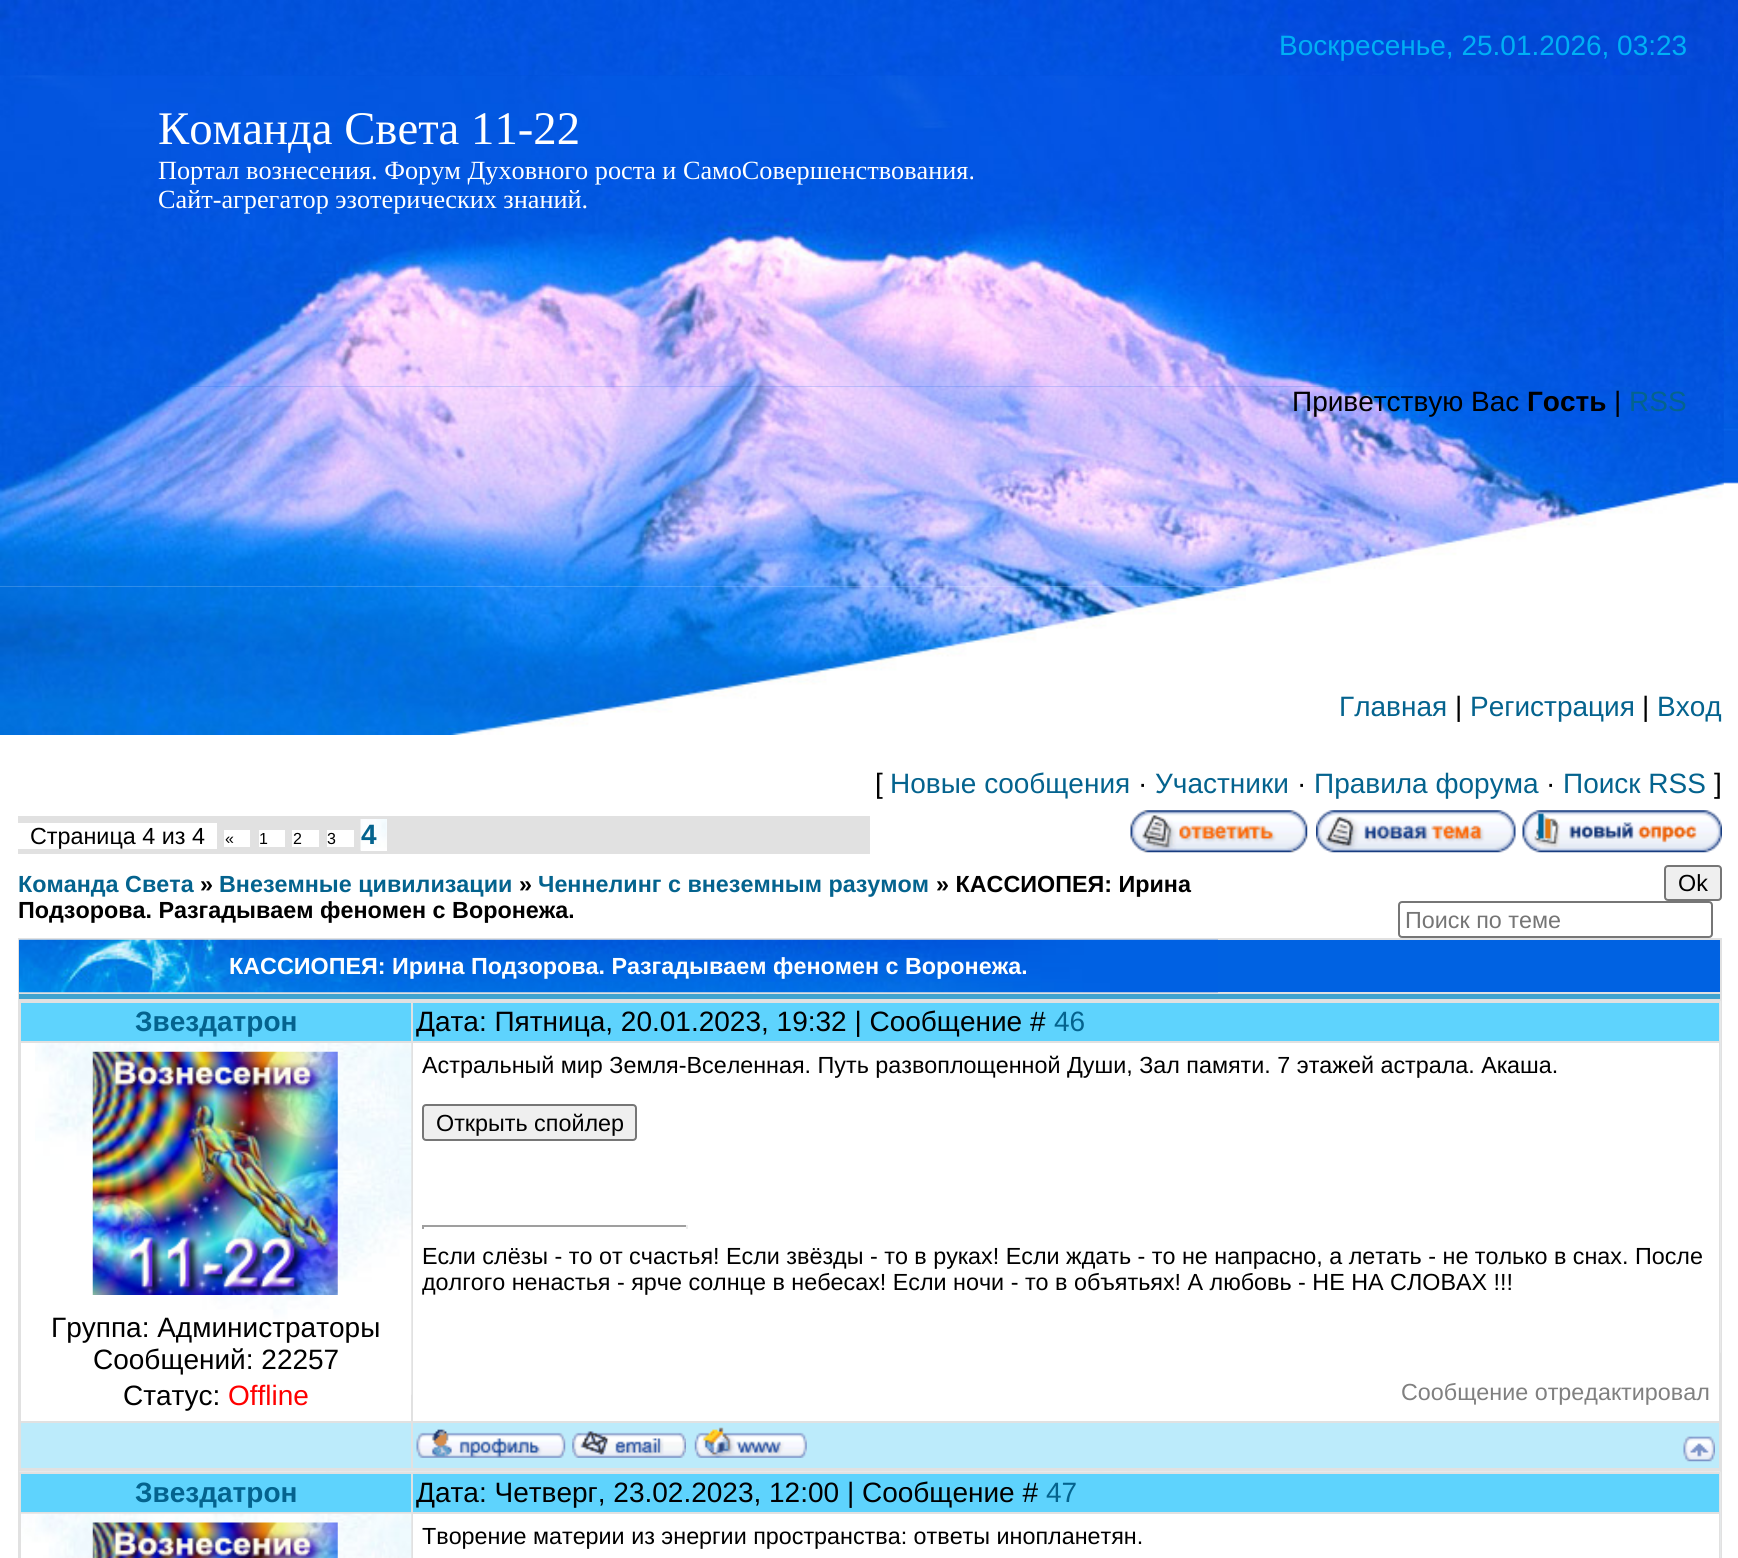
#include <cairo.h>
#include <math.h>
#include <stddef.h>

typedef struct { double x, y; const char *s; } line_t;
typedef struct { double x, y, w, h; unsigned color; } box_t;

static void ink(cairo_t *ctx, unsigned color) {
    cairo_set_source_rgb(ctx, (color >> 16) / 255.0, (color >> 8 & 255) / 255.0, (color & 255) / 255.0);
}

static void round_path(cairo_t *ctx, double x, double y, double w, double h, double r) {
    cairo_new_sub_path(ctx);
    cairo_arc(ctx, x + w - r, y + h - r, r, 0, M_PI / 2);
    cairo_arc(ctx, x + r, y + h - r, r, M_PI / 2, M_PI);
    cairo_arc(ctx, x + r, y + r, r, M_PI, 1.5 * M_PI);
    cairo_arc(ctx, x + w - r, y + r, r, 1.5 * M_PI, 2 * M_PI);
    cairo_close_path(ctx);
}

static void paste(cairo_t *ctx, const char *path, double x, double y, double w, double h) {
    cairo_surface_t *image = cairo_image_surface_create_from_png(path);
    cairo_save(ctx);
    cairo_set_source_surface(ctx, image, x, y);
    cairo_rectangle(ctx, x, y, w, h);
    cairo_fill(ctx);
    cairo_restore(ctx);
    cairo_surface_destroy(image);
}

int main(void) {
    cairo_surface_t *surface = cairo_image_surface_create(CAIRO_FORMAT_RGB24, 1738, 1558);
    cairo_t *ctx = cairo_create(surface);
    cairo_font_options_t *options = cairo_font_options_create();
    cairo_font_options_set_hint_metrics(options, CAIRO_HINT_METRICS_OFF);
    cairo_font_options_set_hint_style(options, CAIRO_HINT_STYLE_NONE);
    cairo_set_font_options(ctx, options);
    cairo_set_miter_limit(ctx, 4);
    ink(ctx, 0xFFFFFF);
    cairo_paint(ctx);
    paste(ctx, "media/1.png", 0, 0, 1738, 484);
    paste(ctx, "media/2.png", 0, 0, 1724, 76);
    cairo_select_font_face(ctx, "Liberation Sans", CAIRO_FONT_SLANT_NORMAL, CAIRO_FONT_WEIGHT_NORMAL);
    cairo_set_font_size(ctx, 28);
    ink(ctx, 0x00B0F5);
    cairo_move_to(ctx, 1279, 55);
    cairo_show_text(ctx, "Воскресенье, 25.01.2026, 03:23");
    paste(ctx, "media/3.png", 0, 75, 1724, 312);
    cairo_select_font_face(ctx, "Liberation Serif", CAIRO_FONT_SLANT_NORMAL, CAIRO_FONT_WEIGHT_NORMAL);
    cairo_set_font_size(ctx, 46.75);
    ink(ctx, 0xFFFFFF);
    cairo_move_to(ctx, 158, 144);
    cairo_show_text(ctx, "Команда Света 11-22");
    cairo_set_font_size(ctx, 26.25);
    cairo_move_to(ctx, 158, 179);
    cairo_show_text(ctx, "Портал вознесения. Форум Духовного роста и СамоСовершенствования.");
    cairo_move_to(ctx, 158, 208);
    cairo_show_text(ctx, "Сайт-агрегатор эзотерических знаний.");
    paste(ctx, "media/5.png", 0, 586, 1246, 149);
    paste(ctx, "media/4.png", 0, 386, 1724, 201);
    cairo_select_font_face(ctx, "Liberation Sans", CAIRO_FONT_SLANT_NORMAL, CAIRO_FONT_WEIGHT_NORMAL);
    cairo_set_font_size(ctx, 28);
    ink(ctx, 0x000000);
    cairo_move_to(ctx, 1292, 411);
    cairo_show_text(ctx, "Приветствую Вас");
    cairo_select_font_face(ctx, "Liberation Sans", CAIRO_FONT_SLANT_NORMAL, CAIRO_FONT_WEIGHT_BOLD);
    cairo_move_to(ctx, 1527, 411);
    cairo_show_text(ctx, "Гость");
    cairo_select_font_face(ctx, "Liberation Sans", CAIRO_FONT_SLANT_NORMAL, CAIRO_FONT_WEIGHT_NORMAL);
    cairo_move_to(ctx, 1614, 411);
    cairo_show_text(ctx, "|");
    ink(ctx, 0x04638E);
    cairo_move_to(ctx, 1629, 411);
    cairo_show_text(ctx, "RSS");
    cairo_move_to(ctx, 1339, 716);
    cairo_show_text(ctx, "Главная");
    ink(ctx, 0x000000);
    cairo_move_to(ctx, 1455, 716);
    cairo_show_text(ctx, "|");
    ink(ctx, 0x04638E);
    cairo_move_to(ctx, 1470, 716);
    cairo_show_text(ctx, "Регистрация");
    ink(ctx, 0x000000);
    cairo_move_to(ctx, 1642, 716);
    cairo_show_text(ctx, "|");
    ink(ctx, 0x04638E);
    cairo_move_to(ctx, 1657, 716);
    cairo_show_text(ctx, "Вход");
    ink(ctx, 0x000000);
    cairo_move_to(ctx, 875, 793);
    cairo_show_text(ctx, "[");
    ink(ctx, 0x04638E);
    cairo_move_to(ctx, 890, 793);
    cairo_show_text(ctx, "Новые сообщения");
    ink(ctx, 0x000000);
    cairo_move_to(ctx, 1138, 793);
    cairo_show_text(ctx, "·");
    ink(ctx, 0x04638E);
    cairo_move_to(ctx, 1155, 793);
    cairo_show_text(ctx, "Участники");
    ink(ctx, 0x000000);
    cairo_move_to(ctx, 1297, 793);
    cairo_show_text(ctx, "·");
    ink(ctx, 0x04638E);
    cairo_move_to(ctx, 1314, 793);
    cairo_show_text(ctx, "Правила форума");
    ink(ctx, 0x000000);
    cairo_move_to(ctx, 1546, 793);
    cairo_show_text(ctx, "·");
    ink(ctx, 0x04638E);
    cairo_move_to(ctx, 1563, 793);
    cairo_show_text(ctx, "Поиск RSS");
    ink(ctx, 0x000000);
    cairo_move_to(ctx, 1714, 793);
    cairo_show_text(ctx, "]");
    ink(ctx, 0xE1E1E1);
    cairo_rectangle(ctx, 18, 816, 852, 38);
    cairo_fill(ctx);
    ink(ctx, 0xFFFFFF);
    cairo_rectangle(ctx, 18, 823, 199, 26);
    cairo_fill(ctx);
    cairo_set_font_size(ctx, 23.33);
    ink(ctx, 0x000000);
    cairo_move_to(ctx, 30, 844);
    cairo_show_text(ctx, "Страница 4 из 4");
    ink(ctx, 0xFFFFFF);
    cairo_rectangle(ctx, 224, 830, 26, 17);
    cairo_fill(ctx);
    cairo_set_font_size(ctx, 16);
    ink(ctx, 0x000000);
    cairo_move_to(ctx, 225, 844);
    cairo_show_text(ctx, "«");
    ink(ctx, 0xFFFFFF);
    cairo_rectangle(ctx, 259, 830, 26, 17);
    cairo_fill(ctx);
    ink(ctx, 0x000000);
    cairo_move_to(ctx, 259, 844);
    cairo_show_text(ctx, "1");
    ink(ctx, 0xFFFFFF);
    cairo_rectangle(ctx, 292, 830, 27, 17);
    cairo_fill(ctx);
    ink(ctx, 0x000000);
    cairo_move_to(ctx, 293, 844);
    cairo_show_text(ctx, "2");
    ink(ctx, 0xFFFFFF);
    cairo_rectangle(ctx, 327, 830, 27, 17);
    cairo_fill(ctx);
    ink(ctx, 0x000000);
    cairo_move_to(ctx, 327, 844);
    cairo_show_text(ctx, "3");
    ink(ctx, 0xFFFFFF);
    cairo_rectangle(ctx, 361, 819, 26, 32);
    cairo_fill(ctx);
    paste(ctx, "media/6.png", 360, 819, 27, 32);
    cairo_select_font_face(ctx, "Liberation Sans", CAIRO_FONT_SLANT_NORMAL, CAIRO_FONT_WEIGHT_BOLD);
    cairo_set_font_size(ctx, 28);
    ink(ctx, 0x04638E);
    cairo_move_to(ctx, 361, 844);
    cairo_show_text(ctx, "4");
    paste(ctx, "media/7.png", 1130, 810, 178, 43);
    paste(ctx, "media/8.png", 1316, 810, 200, 43);
    paste(ctx, "media/9.png", 1522, 810, 200, 43);
    cairo_set_font_size(ctx, 23.33);
    cairo_move_to(ctx, 18, 892);
    cairo_show_text(ctx, "Команда Света");
    ink(ctx, 0x000000);
    cairo_move_to(ctx, 200, 892);
    cairo_show_text(ctx, "»");
    ink(ctx, 0x04638E);
    cairo_move_to(ctx, 219, 892);
    cairo_show_text(ctx, "Внеземные цивилизации");
    ink(ctx, 0x000000);
    cairo_move_to(ctx, 519, 892);
    cairo_show_text(ctx, "»");
    ink(ctx, 0x04638E);
    cairo_move_to(ctx, 538, 892);
    cairo_show_text(ctx, "Ченнелинг с внеземным разумом");
    ink(ctx, 0x000000);
    cairo_move_to(ctx, 936, 892);
    cairo_show_text(ctx, "» КАССИОПЕЯ: Ирина");
    cairo_move_to(ctx, 18, 918);
    cairo_show_text(ctx, "Подзорова. Разгадываем феномен с Воронежа.");
    ink(ctx, 0xEFEFEF);
    round_path(ctx, 1665, 866, 56, 34, 3);
    cairo_fill_preserve(ctx);
    ink(ctx, 0x767676);
    cairo_stroke(ctx);
    cairo_select_font_face(ctx, "Liberation Sans", CAIRO_FONT_SLANT_NORMAL, CAIRO_FONT_WEIGHT_NORMAL);
    ink(ctx, 0x000000);
    cairo_move_to(ctx, 1678, 891);
    cairo_show_text(ctx, "Ok");
    round_path(ctx, 1399, 902, 313, 35, 3);
    ink(ctx, 0x767676);
    cairo_stroke(ctx);
    ink(ctx, 0x757575);
    cairo_move_to(ctx, 1405, 928);
    cairo_show_text(ctx, "Поиск по теме");
    ink(ctx, 0xE1E1E1);
    cairo_rectangle(ctx, 18, 938, 1704, 620);
    cairo_fill(ctx);
    ink(ctx, 0x0062E2);
    cairo_rectangle(ctx, 19, 940, 1701, 52);
    cairo_fill(ctx);
    paste(ctx, "media/10.png", 19, 939, 1199, 54);
    cairo_select_font_face(ctx, "Liberation Sans", CAIRO_FONT_SLANT_NORMAL, CAIRO_FONT_WEIGHT_BOLD);
    ink(ctx, 0xFFFFFF);
    cairo_move_to(ctx, 229, 974);
    cairo_show_text(ctx, "КАССИОПЕЯ: Ирина Подзорова. Разгадываем феномен с Воронежа.");
    ink(ctx, 0x40A3CF);
    cairo_rectangle(ctx, 19, 994, 1701, 5);
    cairo_fill(ctx);
    paste(ctx, "media/11.png", 1720, 1001, 1, 352);
    ink(ctx, 0x5ED3FD);
    cairo_rectangle(ctx, 21, 1003, 390, 38);
    cairo_fill(ctx);
    cairo_set_font_size(ctx, 28);
    ink(ctx, 0x04638E);
    cairo_move_to(ctx, 135, 1031);
    cairo_show_text(ctx, "Звездатрон");
    ink(ctx, 0x5ED3FD);
    cairo_rectangle(ctx, 413, 1003, 1306, 38);
    cairo_fill(ctx);
    cairo_select_font_face(ctx, "Liberation Sans", CAIRO_FONT_SLANT_NORMAL, CAIRO_FONT_WEIGHT_NORMAL);
    ink(ctx, 0x000000);
    cairo_move_to(ctx, 416, 1031);
    cairo_show_text(ctx, "Дата: Пятница, 20.01.2023, 19:32 | Сообщение #");
    ink(ctx, 0x04638E);
    cairo_move_to(ctx, 1054, 1031);
    cairo_show_text(ctx, "46");
    ink(ctx, 0xFFFFFF);
    cairo_rectangle(ctx, 21, 1043, 390, 378);
    cairo_fill(ctx);
    paste(ctx, "media/12.png", 35, 1043, 377, 352);
    paste(ctx, "media/13.png", 92, 1051, 246, 244);
    ink(ctx, 0x000000);
    {
        static const line_t items[] = {
            {51, 1337, "Группа: Администраторы"},
            {93, 1369, "Сообщений: 22257"},
            {123, 1405, "Статус:"},
        };
        for (size_t i = 0; i < sizeof items / sizeof *items; i++) {
            cairo_move_to(ctx, items[i].x, items[i].y);
            cairo_show_text(ctx, items[i].s);
        }
    }
    ink(ctx, 0xFF0000);
    cairo_move_to(ctx, 228, 1405);
    cairo_show_text(ctx, "Offline");
    ink(ctx, 0xFFFFFF);
    cairo_rectangle(ctx, 413, 1043, 1306, 378);
    cairo_fill(ctx);
    cairo_set_font_size(ctx, 23.33);
    ink(ctx, 0x000000);
    cairo_move_to(ctx, 422, 1073);
    cairo_show_text(ctx, "Астральный мир Земля-Вселенная. Путь развоплощенной Души, Зал памяти. 7 этажей астрала. Акаша.");
    ink(ctx, 0xEFEFEF);
    round_path(ctx, 423, 1105, 213, 35, 3);
    cairo_fill_preserve(ctx);
    ink(ctx, 0x767676);
    cairo_stroke(ctx);
    ink(ctx, 0x000000);
    cairo_move_to(ctx, 436, 1131);
    cairo_show_text(ctx, "Открыть спойлер");
    {
        static const box_t items[] = {
            {422, 1225, 266, 2, 0x9F9F9F},
            {686, 1225, 2, 4, 0xEEEEEE},
            {422, 1225, 2, 4, 0x9F9F9F},
        };
        for (size_t i = 0; i < sizeof items / sizeof *items; i++) {
            ink(ctx, items[i].color);
            cairo_rectangle(ctx, items[i].x, items[i].y, items[i].w, items[i].h);
            cairo_fill(ctx);
        }
    }
    ink(ctx, 0x000000);
    cairo_move_to(ctx, 422, 1264);
    cairo_show_text(ctx, "Если слёзы - то от счастья! Если звёзды - то в руках! Если ждать - то не напрасно, а летать - не только в снах. После");
    cairo_move_to(ctx, 422, 1290);
    cairo_show_text(ctx, "долгого ненастья - ярче солнце в небесах! Если ночи - то в объятьях! А любовь - НЕ НА СЛОВАХ !!!");
    ink(ctx, 0x808080);
    cairo_move_to(ctx, 1401, 1400);
    cairo_show_text(ctx, "Сообщение отредактировал");
    ink(ctx, 0xBCEBFB);
    cairo_rectangle(ctx, 21, 1423, 390, 45);
    cairo_fill(ctx);
    cairo_rectangle(ctx, 413, 1423, 1306, 45);
    cairo_fill(ctx);
    paste(ctx, "media/14.png", 416, 1429, 150, 29);
    paste(ctx, "media/15.png", 572, 1431, 114, 27);
    paste(ctx, "media/16.png", 694, 1427, 113, 31);
    paste(ctx, "media/17.png", 1683, 1436, 32, 26);
    paste(ctx, "media/18.png", 19, 1471, 1702, 87);
    ink(ctx, 0xE1E1E1);
    cairo_rectangle(ctx, 19, 1472, 1701, 86);
    cairo_fill(ctx);
    ink(ctx, 0x5ED3FD);
    cairo_rectangle(ctx, 21, 1474, 390, 38);
    cairo_fill(ctx);
    cairo_select_font_face(ctx, "Liberation Sans", CAIRO_FONT_SLANT_NORMAL, CAIRO_FONT_WEIGHT_BOLD);
    cairo_set_font_size(ctx, 28);
    ink(ctx, 0x04638E);
    cairo_move_to(ctx, 135, 1502);
    cairo_show_text(ctx, "Звездатрон");
    ink(ctx, 0x5ED3FD);
    cairo_rectangle(ctx, 413, 1474, 1306, 38);
    cairo_fill(ctx);
    cairo_select_font_face(ctx, "Liberation Sans", CAIRO_FONT_SLANT_NORMAL, CAIRO_FONT_WEIGHT_NORMAL);
    ink(ctx, 0x000000);
    cairo_move_to(ctx, 416, 1502);
    cairo_show_text(ctx, "Дата: Четверг, 23.02.2023, 12:00 | Сообщение #");
    ink(ctx, 0x04638E);
    cairo_move_to(ctx, 1046, 1502);
    cairo_show_text(ctx, "47");
    paste(ctx, "media/19.png", 21, 1513, 391, 45);
    paste(ctx, "media/20.png", 92, 1522, 246, 36);
    ink(ctx, 0xFFFFFF);
    cairo_rectangle(ctx, 413, 1514, 1306, 44);
    cairo_fill(ctx);
    cairo_set_font_size(ctx, 23.33);
    ink(ctx, 0x000000);
    cairo_move_to(ctx, 422, 1544);
    cairo_show_text(ctx, "Творение материи из энергии пространства: ответы инопланетян.");
    cairo_surface_write_to_png(surface, "image.png");
    cairo_font_options_destroy(options);
    cairo_destroy(ctx);
    cairo_surface_destroy(surface);
    return 0;
}
